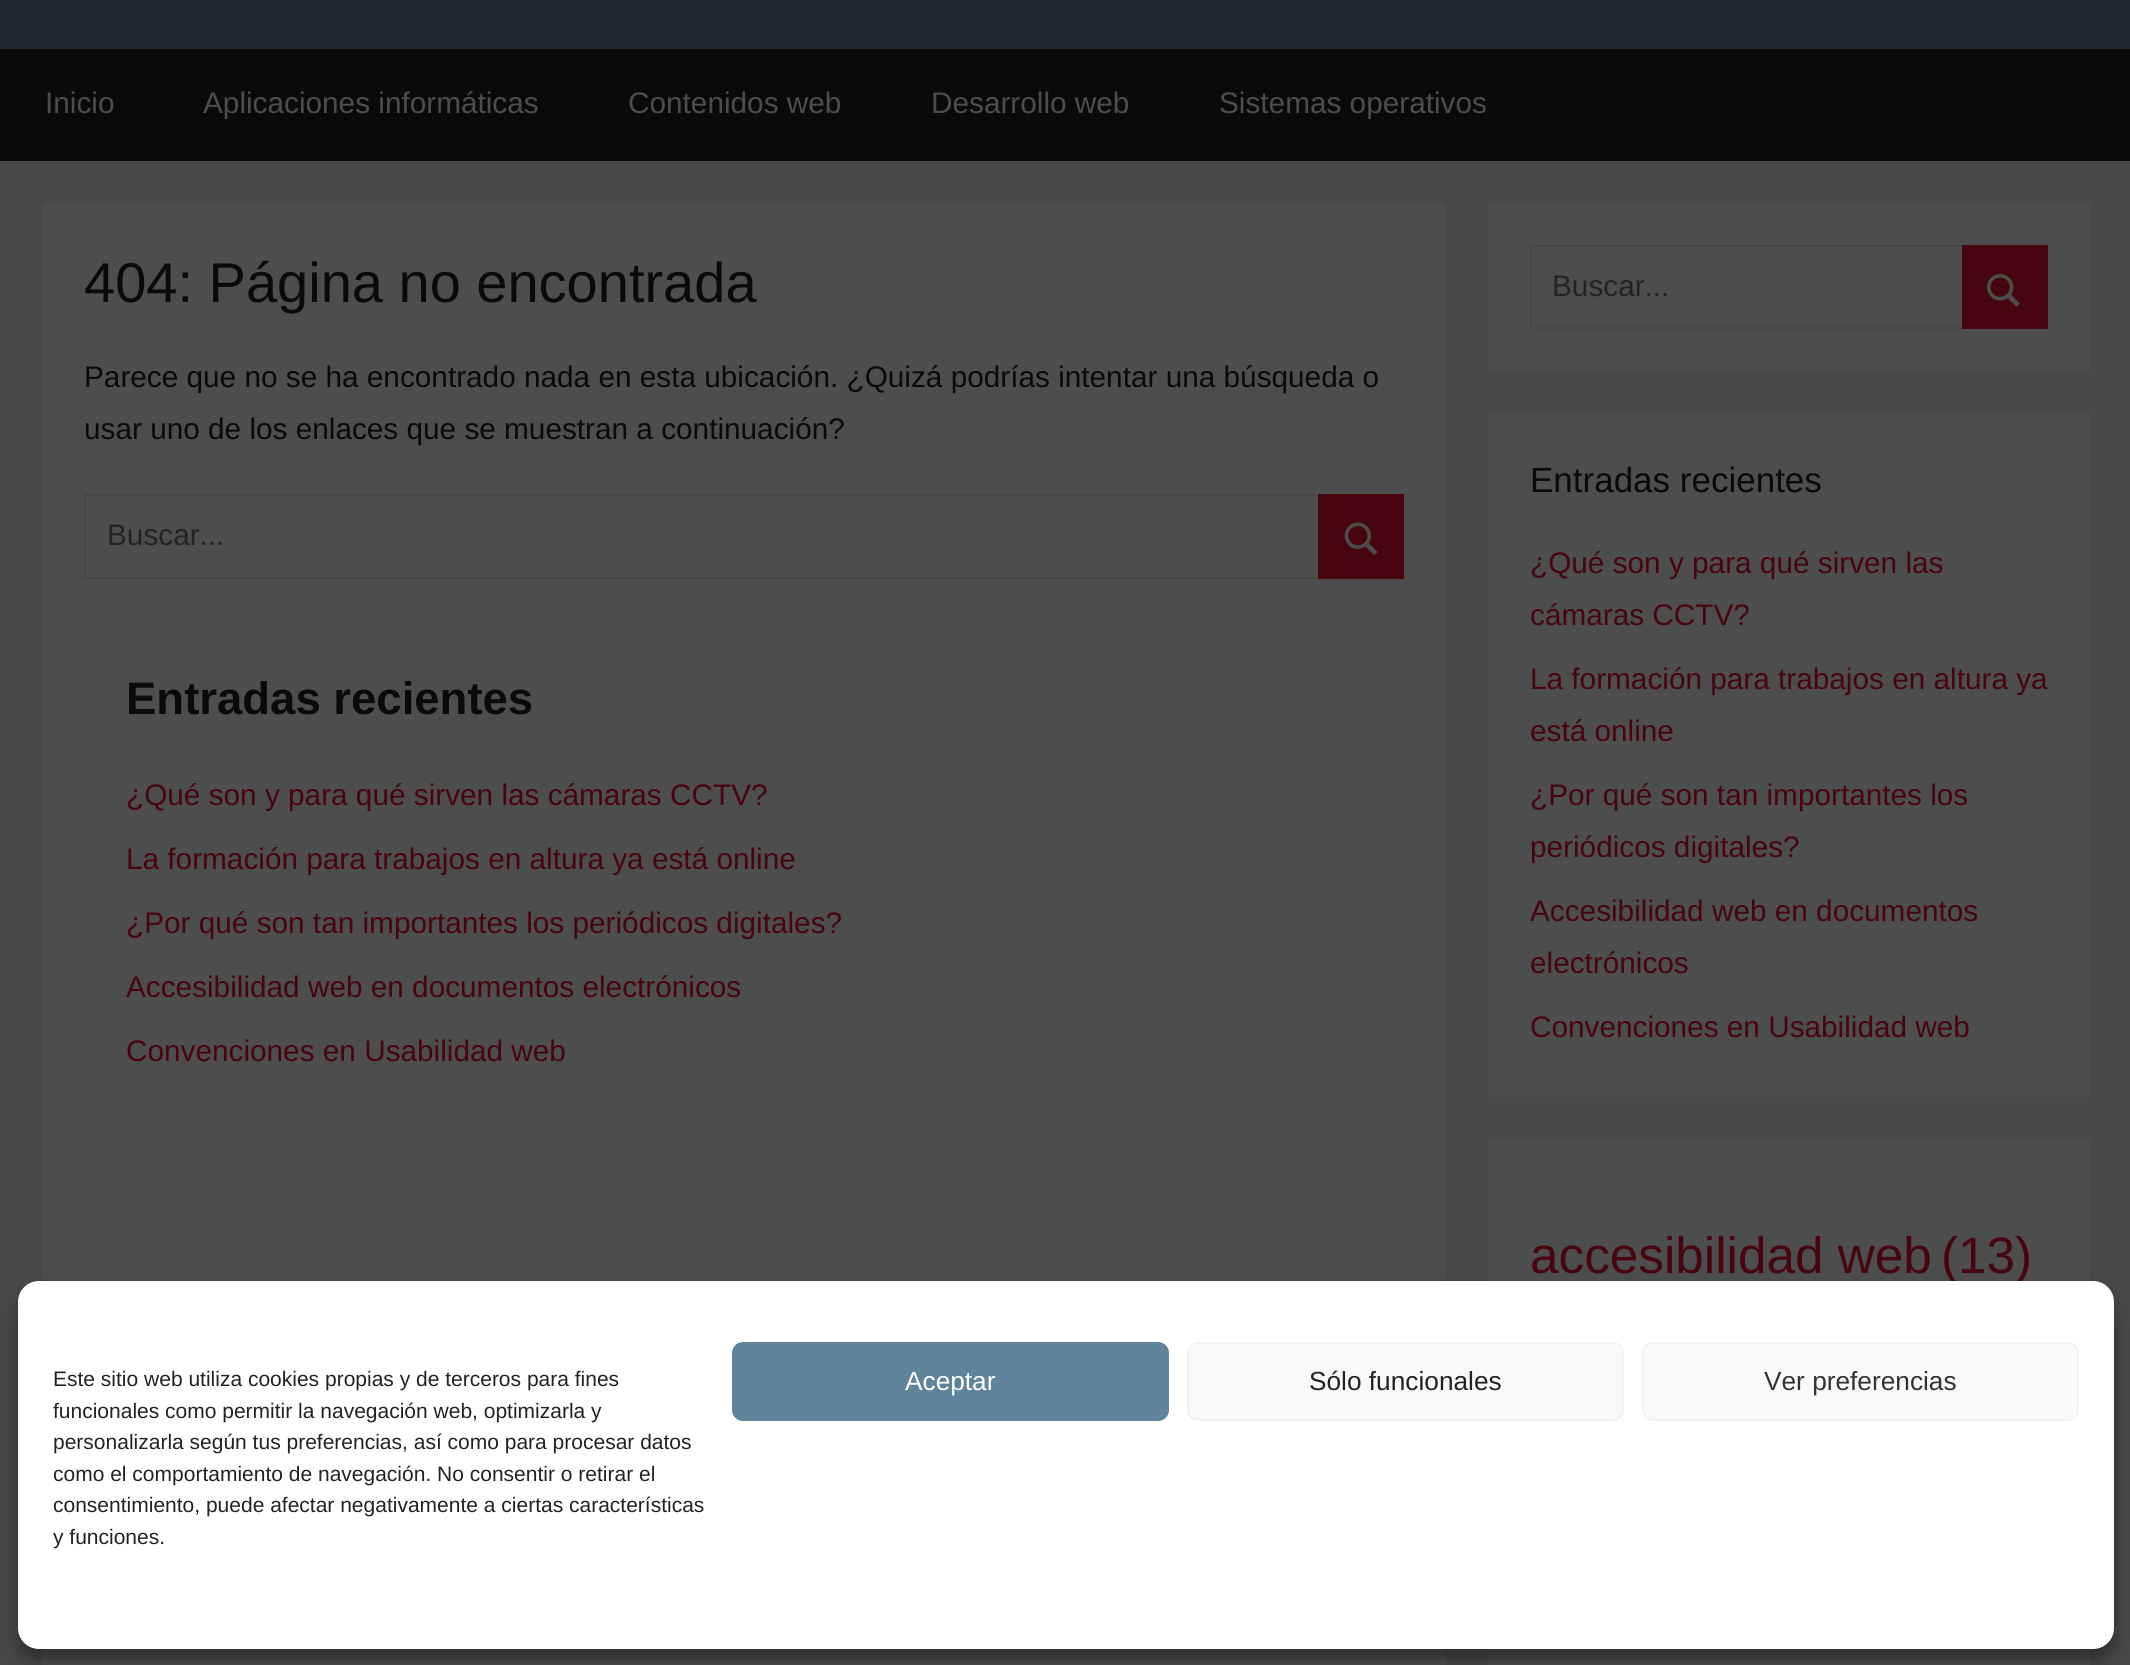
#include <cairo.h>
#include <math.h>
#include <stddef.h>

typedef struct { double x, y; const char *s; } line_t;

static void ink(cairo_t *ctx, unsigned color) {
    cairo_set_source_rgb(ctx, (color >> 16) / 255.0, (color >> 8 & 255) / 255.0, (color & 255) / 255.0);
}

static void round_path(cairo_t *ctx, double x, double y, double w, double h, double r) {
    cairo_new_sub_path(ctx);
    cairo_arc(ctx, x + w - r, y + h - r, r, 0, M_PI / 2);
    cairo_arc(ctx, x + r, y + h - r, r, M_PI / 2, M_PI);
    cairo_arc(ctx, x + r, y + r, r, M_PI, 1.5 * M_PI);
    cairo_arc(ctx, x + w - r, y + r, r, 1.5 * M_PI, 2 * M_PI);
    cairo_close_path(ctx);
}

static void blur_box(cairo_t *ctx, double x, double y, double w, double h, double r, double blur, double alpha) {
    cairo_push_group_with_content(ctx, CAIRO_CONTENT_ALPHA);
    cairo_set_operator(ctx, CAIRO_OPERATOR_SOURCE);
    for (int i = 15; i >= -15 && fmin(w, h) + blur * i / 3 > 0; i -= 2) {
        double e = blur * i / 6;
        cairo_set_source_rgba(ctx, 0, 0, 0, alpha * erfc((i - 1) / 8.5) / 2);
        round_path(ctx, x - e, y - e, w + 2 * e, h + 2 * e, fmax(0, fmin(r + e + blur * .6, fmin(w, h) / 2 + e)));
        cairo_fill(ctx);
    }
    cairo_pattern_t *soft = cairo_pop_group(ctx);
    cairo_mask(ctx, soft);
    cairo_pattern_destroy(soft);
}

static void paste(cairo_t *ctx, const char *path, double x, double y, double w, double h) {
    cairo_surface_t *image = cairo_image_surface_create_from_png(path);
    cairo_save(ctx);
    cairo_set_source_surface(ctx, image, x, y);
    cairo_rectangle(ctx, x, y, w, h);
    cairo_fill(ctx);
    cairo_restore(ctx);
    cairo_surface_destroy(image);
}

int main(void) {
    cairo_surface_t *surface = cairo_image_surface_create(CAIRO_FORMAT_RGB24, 2130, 1665);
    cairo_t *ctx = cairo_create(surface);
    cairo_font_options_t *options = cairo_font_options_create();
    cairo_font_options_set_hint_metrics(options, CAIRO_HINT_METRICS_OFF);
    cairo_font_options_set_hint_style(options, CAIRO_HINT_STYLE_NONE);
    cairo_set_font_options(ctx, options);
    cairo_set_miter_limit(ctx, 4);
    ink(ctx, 0x484848);
    cairo_paint(ctx);
    ink(ctx, 0x1D282F);
    cairo_rectangle(ctx, 0, 0, 2130, 49);
    cairo_fill(ctx);
    ink(ctx, 0x0A0A0A);
    cairo_rectangle(ctx, 0, 49, 2130, 112);
    cairo_fill(ctx);
    cairo_select_font_face(ctx, "Liberation Sans", CAIRO_FONT_SLANT_NORMAL, CAIRO_FONT_WEIGHT_NORMAL);
    cairo_set_font_size(ctx, 29.75);
    ink(ctx, 0x4D4D4D);
    {
        static const line_t items[] = {
            {45, 113, "Inicio"},
            {203, 113, "Aplicaciones informáticas"},
            {628, 113, "Contenidos web"},
            {931, 113, "Desarrollo web"},
            {1219, 113, "Sistemas operativos"},
        };
        for (size_t i = 0; i < sizeof items / sizeof *items; i++) {
            cairo_move_to(ctx, items[i].x, items[i].y);
            cairo_show_text(ctx, items[i].s);
        }
    }
    cairo_rectangle(ctx, 42, 203, 1404, 1462);
    cairo_fill(ctx);
    cairo_set_font_size(ctx, 56);
    ink(ctx, 0x0A0A0A);
    cairo_move_to(ctx, 84, 302);
    cairo_show_text(ctx, "404: Página no encontrada");
    cairo_set_font_size(ctx, 29.75);
    cairo_move_to(ctx, 84, 387);
    cairo_show_text(ctx, "Parece que no se ha encontrado nada en esta ubicación. ¿Quizá podrías intentar una búsqueda o");
    cairo_move_to(ctx, 84, 439);
    cairo_show_text(ctx, "usar uno de los enlaces que se muestran a continuación?");
    cairo_rectangle(ctx, 85, 495, 1318, 83);
    ink(ctx, 0x474747);
    cairo_stroke(ctx);
    ink(ctx, 0x232323);
    cairo_move_to(ctx, 107, 545);
    cairo_show_text(ctx, "Buscar...");
    ink(ctx, 0x47050F);
    cairo_rectangle(ctx, 1318, 494, 86, 85);
    cairo_fill(ctx);
    paste(ctx, "media/1.png", 1344, 522, 34, 34);
    cairo_select_font_face(ctx, "Liberation Sans", CAIRO_FONT_SLANT_NORMAL, CAIRO_FONT_WEIGHT_BOLD);
    cairo_set_font_size(ctx, 45.5);
    ink(ctx, 0x0A0A0A);
    cairo_move_to(ctx, 126, 714);
    cairo_show_text(ctx, "Entradas recientes");
    cairo_select_font_face(ctx, "Liberation Sans", CAIRO_FONT_SLANT_NORMAL, CAIRO_FONT_WEIGHT_NORMAL);
    cairo_set_font_size(ctx, 29.75);
    ink(ctx, 0x47050F);
    {
        static const line_t items[] = {
            {126, 805, "¿Qué son y para qué sirven las cámaras CCTV?"},
            {126, 869, "La formación para trabajos en altura ya está online"},
            {126, 933, "¿Por qué son tan importantes los periódicos digitales?"},
            {126, 997, "Accesibilidad web en documentos electrónicos"},
            {126, 1061, "Convenciones en Usabilidad web"},
        };
        for (size_t i = 0; i < sizeof items / sizeof *items; i++) {
            cairo_move_to(ctx, items[i].x, items[i].y);
            cairo_show_text(ctx, items[i].s);
        }
    }
    ink(ctx, 0x4D4D4D);
    cairo_rectangle(ctx, 1488, 203, 602, 168);
    cairo_fill(ctx);
    cairo_rectangle(ctx, 1531, 246, 516, 82);
    ink(ctx, 0x474747);
    cairo_stroke(ctx);
    ink(ctx, 0x232323);
    cairo_move_to(ctx, 1552, 296);
    cairo_show_text(ctx, "Buscar...");
    ink(ctx, 0x47050F);
    cairo_rectangle(ctx, 1962, 245, 86, 84);
    cairo_fill(ctx);
    paste(ctx, "media/2.png", 1986, 274, 34, 33);
    ink(ctx, 0x4D4D4D);
    cairo_rectangle(ctx, 1488, 413, 602, 684);
    cairo_fill(ctx);
    cairo_set_font_size(ctx, 35);
    ink(ctx, 0x0A0A0A);
    cairo_move_to(ctx, 1530, 492);
    cairo_show_text(ctx, "Entradas recientes");
    cairo_set_font_size(ctx, 29.75);
    ink(ctx, 0x47050F);
    {
        static const line_t items[] = {
            {1530, 573, "¿Qué son y para qué sirven las"},
            {1530, 625, "cámaras CCTV?"},
            {1530, 689, "La formación para trabajos en altura ya"},
            {1530, 741, "está online"},
            {1530, 805, "¿Por qué son tan importantes los"},
            {1530, 857, "periódicos digitales?"},
            {1530, 921, "Accesibilidad web en documentos"},
            {1530, 973, "electrónicos"},
            {1530, 1037, "Convenciones en Usabilidad web"},
        };
        for (size_t i = 0; i < sizeof items / sizeof *items; i++) {
            cairo_move_to(ctx, items[i].x, items[i].y);
            cairo_show_text(ctx, items[i].s);
        }
    }
    ink(ctx, 0x4D4D4D);
    cairo_rectangle(ctx, 1488, 1139, 602, 526);
    cairo_fill(ctx);
    cairo_set_font_size(ctx, 51.25);
    ink(ctx, 0x47050F);
    cairo_move_to(ctx, 1530, 1273);
    cairo_show_text(ctx, "accesibilidad web");
    cairo_move_to(ctx, 1941, 1273);
    cairo_show_text(ctx, "(13)");
    ink(ctx, 0x000000);
    blur_box(ctx, 18, 1292, 2096, 367, 21, 5, 0.23);
    blur_box(ctx, 18, 1299, 2096, 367, 21, 17.5, 0.19);
    ink(ctx, 0xFFFFFF);
    round_path(ctx, 18, 1281, 2096, 368, 21);
    cairo_fill(ctx);
    cairo_set_font_size(ctx, 21);
    ink(ctx, 0x232323);
    {
        static const line_t items[] = {
            {53, 1386, "Este sitio web utiliza cookies propias y de terceros para fines"},
            {53, 1418, "funcionales como permitir la navegación web, optimizarla y"},
            {53, 1449, "personalizarla según tus preferencias, así como para procesar datos"},
            {53, 1481, "como el comportamiento de navegación. No consentir o retirar el"},
            {53, 1512, "consentimiento, puede afectar negativamente a ciertas características"},
            {53, 1544, "y funciones."},
        };
        for (size_t i = 0; i < sizeof items / sizeof *items; i++) {
            cairo_move_to(ctx, items[i].x, items[i].y);
            cairo_show_text(ctx, items[i].s);
        }
    }
    ink(ctx, 0x5F849C);
    round_path(ctx, 733, 1343, 435, 77, 10);
    cairo_fill_preserve(ctx);
    cairo_stroke(ctx);
    cairo_set_font_size(ctx, 26.25);
    ink(ctx, 0xFFFFFF);
    cairo_move_to(ctx, 905, 1390);
    cairo_show_text(ctx, "Aceptar");
    ink(ctx, 0xF9F9F9);
    round_path(ctx, 1188, 1343, 435, 77, 10);
    cairo_fill_preserve(ctx);
    ink(ctx, 0xF2F2F2);
    cairo_stroke(ctx);
    ink(ctx, 0x232323);
    cairo_move_to(ctx, 1309, 1390);
    cairo_show_text(ctx, "Sólo funcionales");
    ink(ctx, 0xF9F9F9);
    round_path(ctx, 1643, 1343, 435, 77, 10);
    cairo_fill_preserve(ctx);
    ink(ctx, 0xF2F2F2);
    cairo_stroke(ctx);
    ink(ctx, 0x333333);
    cairo_move_to(ctx, 1764, 1390);
    cairo_show_text(ctx, "Ver preferencias");
    cairo_surface_write_to_png(surface, "image.png");
    cairo_font_options_destroy(options);
    cairo_destroy(ctx);
    cairo_surface_destroy(surface);
    return 0;
}
